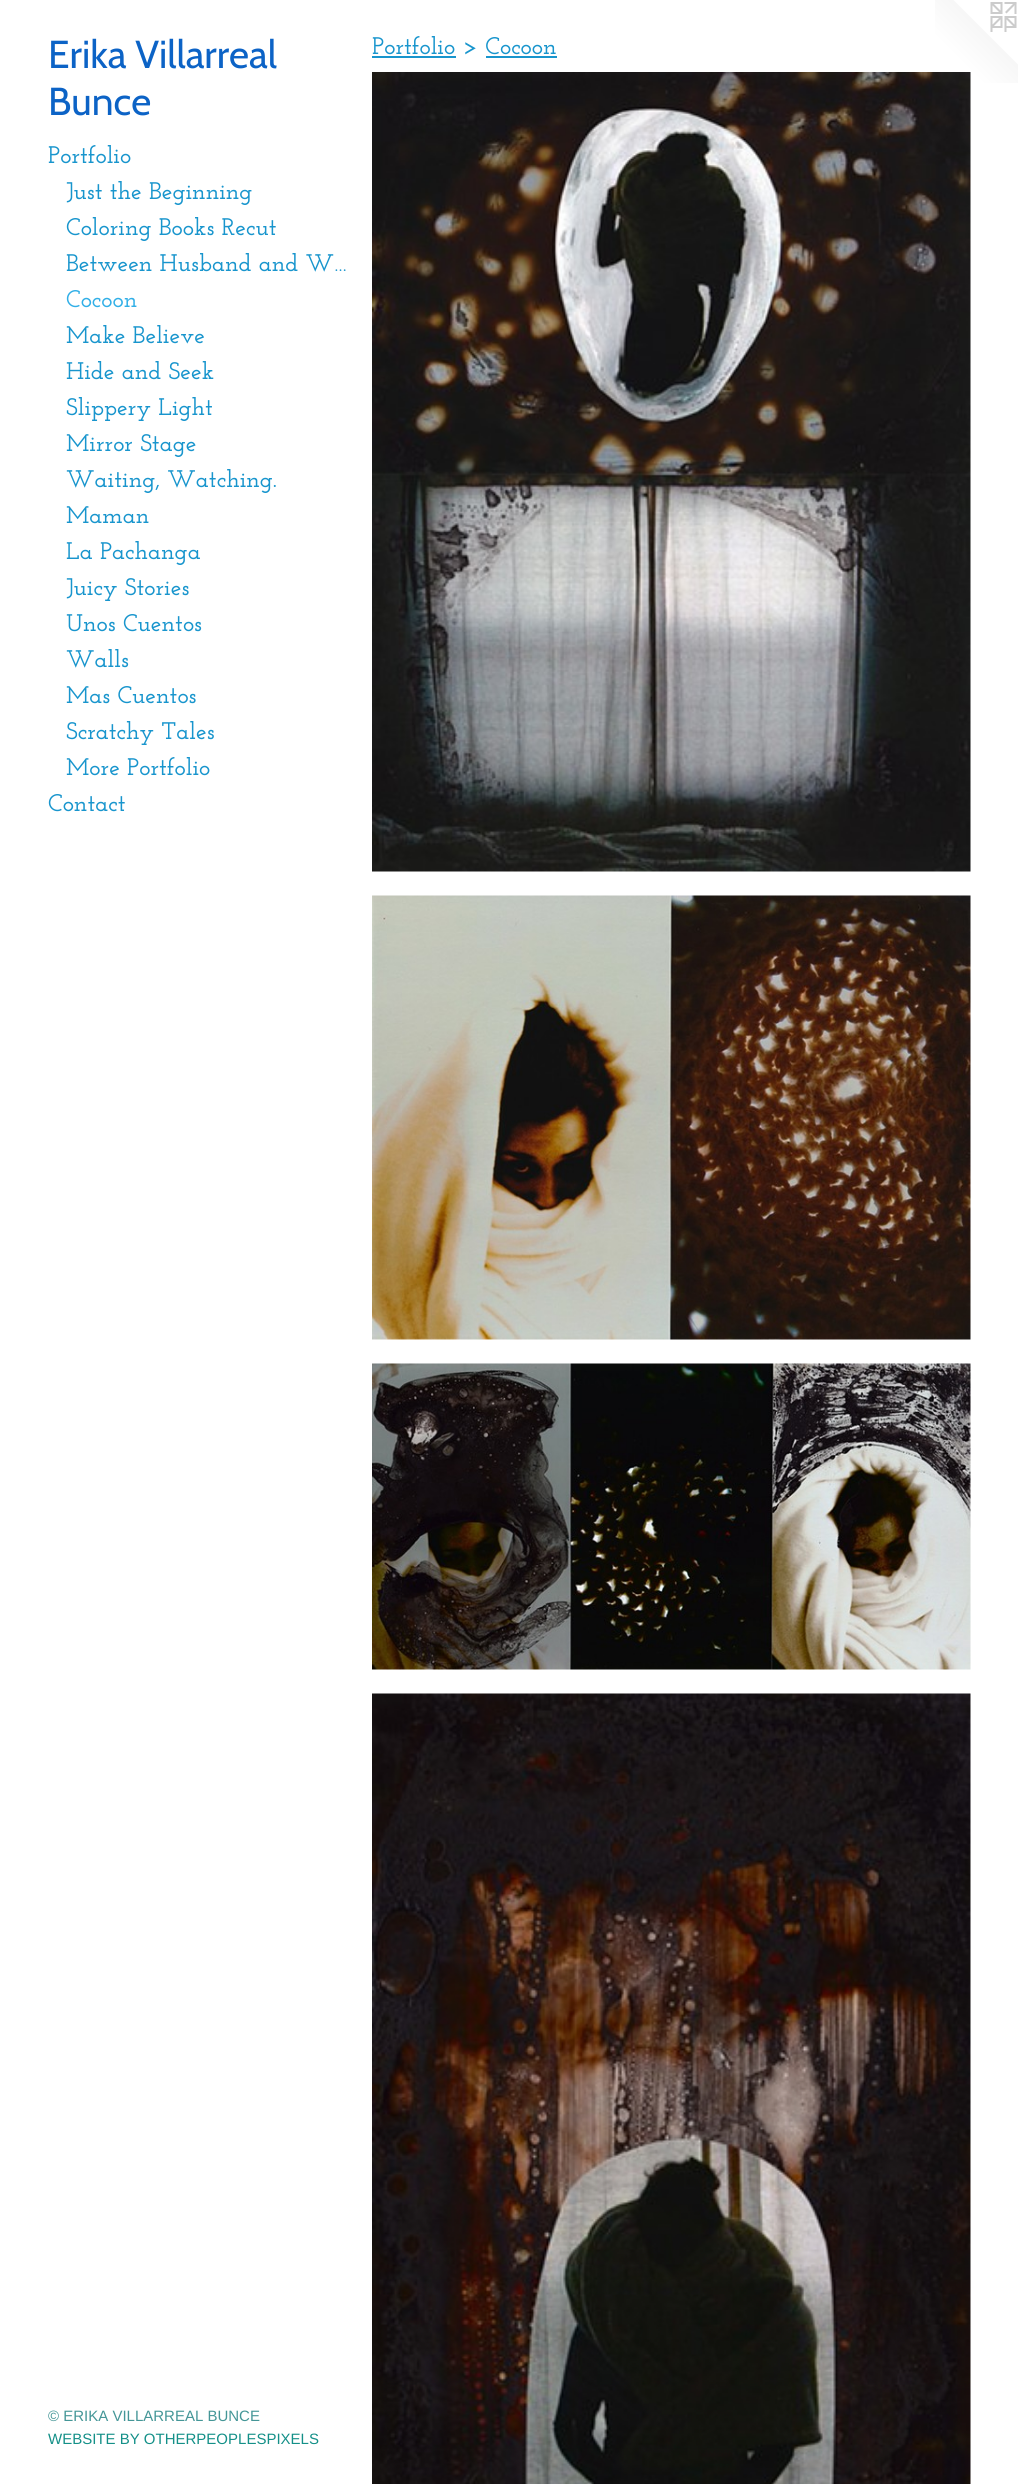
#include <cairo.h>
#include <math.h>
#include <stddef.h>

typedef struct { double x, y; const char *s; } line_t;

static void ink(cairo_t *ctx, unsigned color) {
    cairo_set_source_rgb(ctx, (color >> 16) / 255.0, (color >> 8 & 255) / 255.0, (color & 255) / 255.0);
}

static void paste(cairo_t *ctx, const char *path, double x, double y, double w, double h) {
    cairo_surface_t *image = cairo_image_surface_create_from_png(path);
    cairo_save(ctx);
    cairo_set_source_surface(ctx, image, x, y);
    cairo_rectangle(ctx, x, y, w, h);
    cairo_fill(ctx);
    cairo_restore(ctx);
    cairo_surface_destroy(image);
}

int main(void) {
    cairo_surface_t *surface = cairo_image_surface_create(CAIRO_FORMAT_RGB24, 1018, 2484);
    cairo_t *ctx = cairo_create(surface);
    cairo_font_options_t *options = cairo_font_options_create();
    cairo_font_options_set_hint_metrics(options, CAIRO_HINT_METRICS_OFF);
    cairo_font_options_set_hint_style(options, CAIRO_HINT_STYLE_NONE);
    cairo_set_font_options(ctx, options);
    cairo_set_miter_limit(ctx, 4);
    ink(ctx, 0xFFFFFF);
    cairo_paint(ctx);
    cairo_select_font_face(ctx, "Cabin", CAIRO_FONT_SLANT_NORMAL, CAIRO_FONT_WEIGHT_NORMAL);
    cairo_set_font_size(ctx, 39);
    ink(ctx, 0x0C63C6);
    cairo_move_to(ctx, 48, 68);
    cairo_show_text(ctx, "Erika Villarreal");
    cairo_move_to(ctx, 48, 115);
    cairo_show_text(ctx, "Bunce");
    cairo_select_font_face(ctx, "Josefin Slab Thin", CAIRO_FONT_SLANT_NORMAL, CAIRO_FONT_WEIGHT_NORMAL);
    cairo_set_font_size(ctx, 24);
    ink(ctx, 0x1895CD);
    {
        static const line_t items[] = {
            {48, 163, "Portfolio"},
            {66, 199, "Just the Beginning"},
            {66, 235, "Coloring Books Recut"},
            {66, 271, "Between Husband and W…"},
        };
        for (size_t i = 0; i < sizeof items / sizeof *items; i++) {
            cairo_move_to(ctx, items[i].x, items[i].y);
            cairo_show_text(ctx, items[i].s);
        }
    }
    ink(ctx, 0x31AFE7);
    cairo_move_to(ctx, 66, 307);
    cairo_show_text(ctx, "Cocoon");
    ink(ctx, 0x1895CD);
    {
        static const line_t items[] = {
            {66, 343, "Make Believe"},
            {66, 379, "Hide and Seek"},
            {66, 415, "Slippery Light"},
            {66, 451, "Mirror Stage"},
            {66, 487, "Waiting, Watching."},
            {66, 523, "Maman"},
            {66, 559, "La Pachanga"},
            {66, 595, "Juicy Stories"},
            {66, 631, "Unos Cuentos"},
            {66, 667, "Walls"},
            {66, 703, "Mas Cuentos"},
            {66, 739, "Scratchy Tales"},
            {66, 775, "More Portfolio"},
            {48, 811, "Contact"},
        };
        for (size_t i = 0; i < sizeof items / sizeof *items; i++) {
            cairo_move_to(ctx, items[i].x, items[i].y);
            cairo_show_text(ctx, items[i].s);
        }
    }
    cairo_select_font_face(ctx, "Liberation Sans", CAIRO_FONT_SLANT_NORMAL, CAIRO_FONT_WEIGHT_NORMAL);
    cairo_set_font_size(ctx, 15);
    ink(ctx, 0x449697);
    cairo_move_to(ctx, 48, 2421);
    cairo_show_text(ctx, "© ERIKA VILLARREAL BUNCE");
    ink(ctx, 0x149088);
    cairo_move_to(ctx, 48, 2444);
    cairo_show_text(ctx, "WEBSITE BY OTHERPEOPLESPIXELS");
    cairo_select_font_face(ctx, "Josefin Slab Thin", CAIRO_FONT_SLANT_NORMAL, CAIRO_FONT_WEIGHT_NORMAL);
    cairo_set_font_size(ctx, 24);
    ink(ctx, 0x1895CD);
    cairo_move_to(ctx, 372, 54);
    cairo_show_text(ctx, "Portfolio > Cocoon");
    cairo_rectangle(ctx, 372, 56, 84, 2);
    cairo_fill(ctx);
    cairo_rectangle(ctx, 486, 56, 71, 2);
    cairo_fill(ctx);
    paste(ctx, "media/5.png", 935, 0, 83, 83);
    paste(ctx, "media/1.png", 372, 72, 599, 800);
    paste(ctx, "media/2.png", 372, 895, 599, 445);
    paste(ctx, "media/3.png", 372, 1363, 599, 307);
    paste(ctx, "media/4.png", 372, 1693, 599, 791);
    cairo_surface_write_to_png(surface, "image.png");
    cairo_font_options_destroy(options);
    cairo_destroy(ctx);
    cairo_surface_destroy(surface);
    return 0;
}
